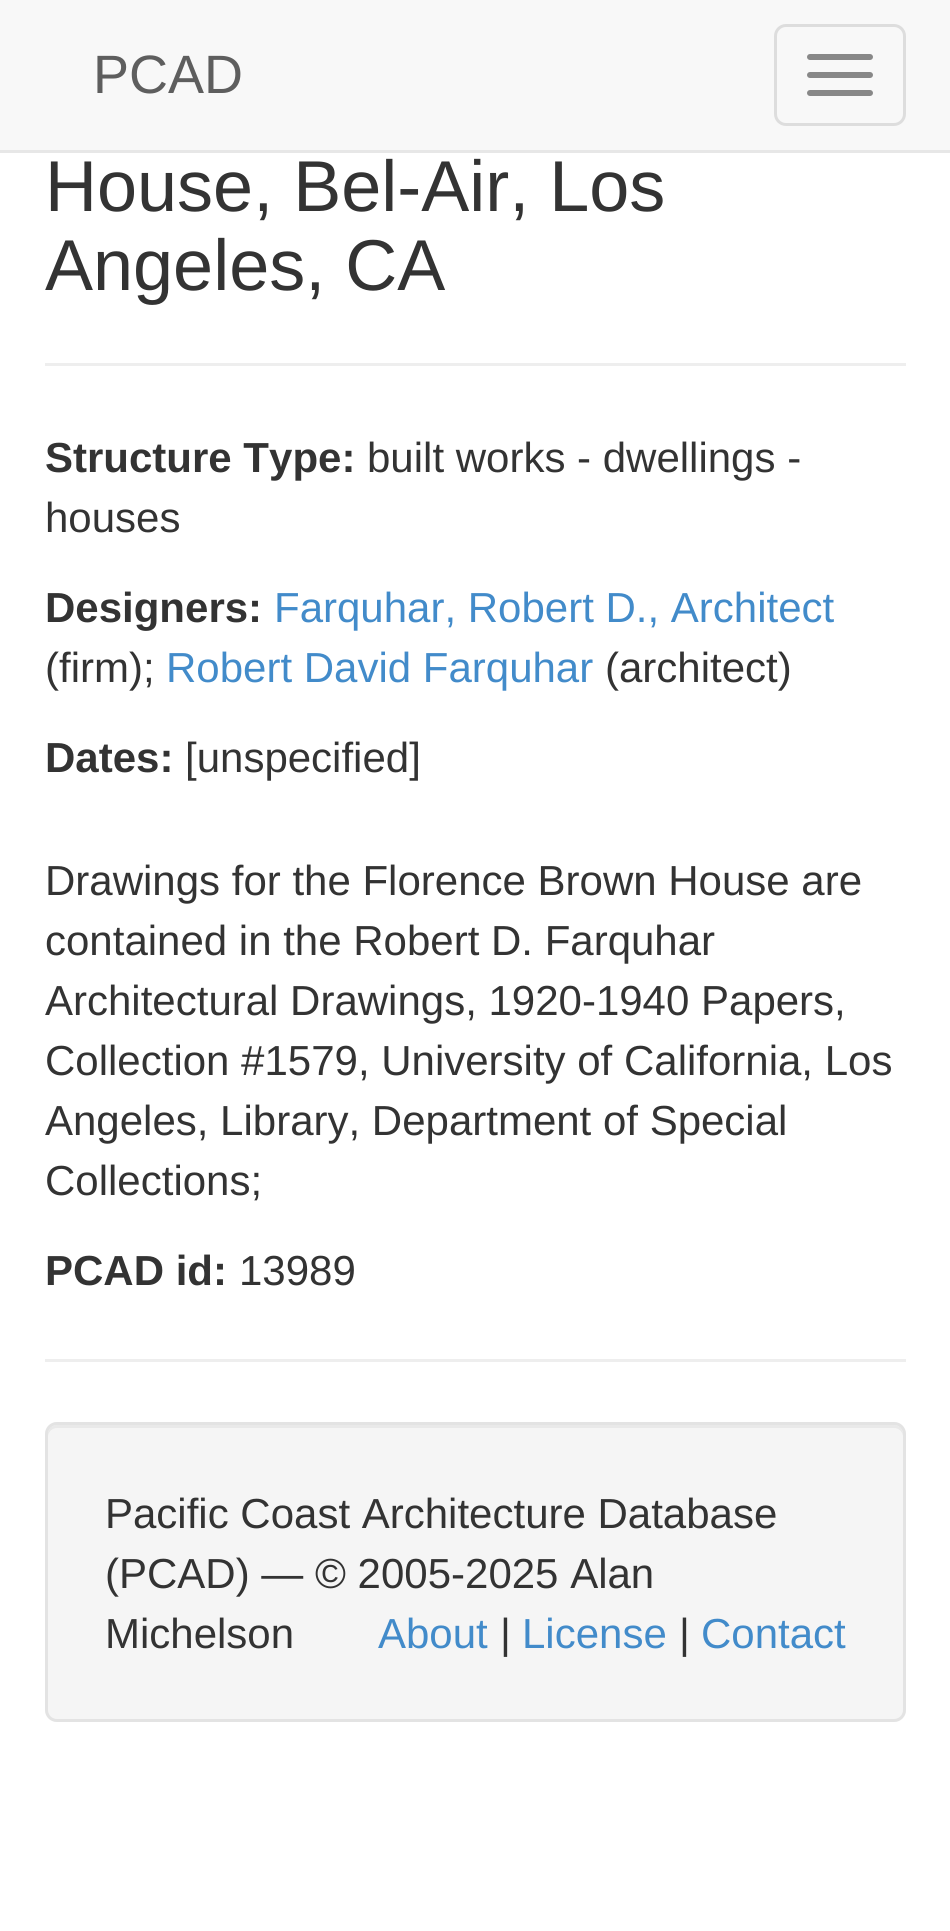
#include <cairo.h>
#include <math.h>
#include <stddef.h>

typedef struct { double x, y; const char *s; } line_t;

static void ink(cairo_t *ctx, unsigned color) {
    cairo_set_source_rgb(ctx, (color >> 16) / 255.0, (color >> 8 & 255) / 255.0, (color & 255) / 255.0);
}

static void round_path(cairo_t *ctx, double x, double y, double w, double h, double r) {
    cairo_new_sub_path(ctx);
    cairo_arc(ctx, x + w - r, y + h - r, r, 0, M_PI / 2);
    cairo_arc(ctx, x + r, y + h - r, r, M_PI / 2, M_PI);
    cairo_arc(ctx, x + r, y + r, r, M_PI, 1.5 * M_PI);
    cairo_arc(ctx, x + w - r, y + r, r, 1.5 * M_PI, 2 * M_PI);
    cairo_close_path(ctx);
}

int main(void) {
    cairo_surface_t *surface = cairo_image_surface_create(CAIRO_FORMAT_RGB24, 950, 1931);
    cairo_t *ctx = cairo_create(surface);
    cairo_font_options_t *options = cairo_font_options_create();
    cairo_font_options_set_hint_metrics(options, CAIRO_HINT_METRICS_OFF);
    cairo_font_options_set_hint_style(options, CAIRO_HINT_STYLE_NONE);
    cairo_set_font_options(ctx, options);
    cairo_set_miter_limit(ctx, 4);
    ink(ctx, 0xFFFFFF);
    cairo_paint(ctx);
    ink(ctx, 0xF8F8F8);
    cairo_rectangle(ctx, 0, 0, 950, 150);
    cairo_fill(ctx);
    ink(ctx, 0xE7E7E7);
    cairo_rectangle(ctx, 0, 150, 950, 3);
    cairo_fill(ctx);
    cairo_select_font_face(ctx, "Liberation Sans", CAIRO_FONT_SLANT_NORMAL, CAIRO_FONT_WEIGHT_NORMAL);
    cairo_set_font_size(ctx, 54);
    ink(ctx, 0x5E5E5E);
    cairo_move_to(ctx, 93, 93);
    cairo_show_text(ctx, "PCAD");
    round_path(ctx, 775.5, 25.5, 129, 99, 10.5);
    ink(ctx, 0xDDDDDD);
    cairo_set_line_width(ctx, 3);
    cairo_stroke(ctx);
    ink(ctx, 0x888888);
    round_path(ctx, 807, 54, 66, 6, 3);
    cairo_fill(ctx);
    round_path(ctx, 807, 72, 66, 6, 3);
    cairo_fill(ctx);
    round_path(ctx, 807, 90, 66, 6, 3);
    cairo_fill(ctx);
    ink(ctx, 0xEEEEEE);
    cairo_rectangle(ctx, 45, 363, 861, 3);
    cairo_fill(ctx);
    cairo_set_font_size(ctx, 72);
    ink(ctx, 0x333333);
    cairo_move_to(ctx, 45, 211);
    cairo_show_text(ctx, "House, Bel-Air, Los");
    cairo_move_to(ctx, 45, 290);
    cairo_show_text(ctx, "Angeles, CA");
    cairo_select_font_face(ctx, "Liberation Sans", CAIRO_FONT_SLANT_NORMAL, CAIRO_FONT_WEIGHT_BOLD);
    cairo_set_font_size(ctx, 42);
    cairo_move_to(ctx, 45, 472);
    cairo_show_text(ctx, "Structure Type:");
    cairo_select_font_face(ctx, "Liberation Sans", CAIRO_FONT_SLANT_NORMAL, CAIRO_FONT_WEIGHT_NORMAL);
    cairo_move_to(ctx, 367, 472);
    cairo_show_text(ctx, "built works - dwellings -");
    cairo_move_to(ctx, 45, 532);
    cairo_show_text(ctx, "houses");
    cairo_select_font_face(ctx, "Liberation Sans", CAIRO_FONT_SLANT_NORMAL, CAIRO_FONT_WEIGHT_BOLD);
    cairo_move_to(ctx, 45, 622);
    cairo_show_text(ctx, "Designers:");
    cairo_select_font_face(ctx, "Liberation Sans", CAIRO_FONT_SLANT_NORMAL, CAIRO_FONT_WEIGHT_NORMAL);
    ink(ctx, 0x428BCA);
    cairo_move_to(ctx, 274, 622);
    cairo_show_text(ctx, "Farquhar, Robert D., Architect");
    ink(ctx, 0x333333);
    cairo_move_to(ctx, 45, 682);
    cairo_show_text(ctx, "(firm);");
    ink(ctx, 0x428BCA);
    cairo_move_to(ctx, 166, 682);
    cairo_show_text(ctx, "Robert David Farquhar");
    ink(ctx, 0x333333);
    cairo_move_to(ctx, 605, 682);
    cairo_show_text(ctx, "(architect)");
    cairo_select_font_face(ctx, "Liberation Sans", CAIRO_FONT_SLANT_NORMAL, CAIRO_FONT_WEIGHT_BOLD);
    cairo_move_to(ctx, 45, 772);
    cairo_show_text(ctx, "Dates:");
    cairo_select_font_face(ctx, "Liberation Sans", CAIRO_FONT_SLANT_NORMAL, CAIRO_FONT_WEIGHT_NORMAL);
    {
        static const line_t items[] = {
            {185, 772, "[unspecified]"},
            {45, 895, "Drawings for the Florence Brown House are"},
            {45, 955, "contained in the Robert D. Farquhar"},
            {45, 1015, "Architectural Drawings, 1920-1940 Papers,"},
            {45, 1075, "Collection #1579, University of California, Los"},
            {45, 1135, "Angeles, Library, Department of Special"},
            {45, 1195, "Collections;"},
        };
        for (size_t i = 0; i < sizeof items / sizeof *items; i++) {
            cairo_move_to(ctx, items[i].x, items[i].y);
            cairo_show_text(ctx, items[i].s);
        }
    }
    cairo_select_font_face(ctx, "Liberation Sans", CAIRO_FONT_SLANT_NORMAL, CAIRO_FONT_WEIGHT_BOLD);
    cairo_move_to(ctx, 45, 1285);
    cairo_show_text(ctx, "PCAD id:");
    cairo_select_font_face(ctx, "Liberation Sans", CAIRO_FONT_SLANT_NORMAL, CAIRO_FONT_WEIGHT_NORMAL);
    cairo_move_to(ctx, 239, 1285);
    cairo_show_text(ctx, "13989");
    ink(ctx, 0xEEEEEE);
    cairo_rectangle(ctx, 45, 1359, 861, 3);
    cairo_fill(ctx);
    ink(ctx, 0xF5F5F5);
    round_path(ctx, 45, 1422, 861, 300, 12);
    cairo_fill(ctx);
    ink(ctx, 0xE9E9E9);
    cairo_new_path(ctx);
    cairo_move_to(ctx, 57, 1428);
    cairo_line_to(ctx, 894, 1428);
    cairo_curve_to(ctx, 899, 1428, 903, 1432, 903, 1437);
    cairo_line_to(ctx, 903, 1434);
    cairo_curve_to(ctx, 903, 1429, 899, 1425, 894, 1425);
    cairo_line_to(ctx, 57, 1425);
    cairo_curve_to(ctx, 52, 1425, 48, 1429, 48, 1434);
    cairo_line_to(ctx, 48, 1437);
    cairo_curve_to(ctx, 48, 1432, 52, 1428, 57, 1428);
    cairo_close_path(ctx);
    cairo_fill(ctx);
    round_path(ctx, 46.5, 1423.5, 858, 297, 10.5);
    ink(ctx, 0xE3E3E3);
    cairo_stroke(ctx);
    ink(ctx, 0x333333);
    {
        static const line_t items[] = {
            {105, 1528, "Pacific Coast Architecture Database"},
            {105, 1588, "(PCAD) — © 2005-2025 Alan"},
            {105, 1648, "Michelson"},
        };
        for (size_t i = 0; i < sizeof items / sizeof *items; i++) {
            cairo_move_to(ctx, items[i].x, items[i].y);
            cairo_show_text(ctx, items[i].s);
        }
    }
    ink(ctx, 0x428BCA);
    cairo_move_to(ctx, 378, 1648);
    cairo_show_text(ctx, "About");
    ink(ctx, 0x333333);
    cairo_move_to(ctx, 500, 1648);
    cairo_show_text(ctx, "|");
    ink(ctx, 0x428BCA);
    cairo_move_to(ctx, 522, 1648);
    cairo_show_text(ctx, "License");
    ink(ctx, 0x333333);
    cairo_move_to(ctx, 679, 1648);
    cairo_show_text(ctx, "|");
    ink(ctx, 0x428BCA);
    cairo_move_to(ctx, 701, 1648);
    cairo_show_text(ctx, "Contact");
    cairo_surface_write_to_png(surface, "image.png");
    cairo_font_options_destroy(options);
    cairo_destroy(ctx);
    cairo_surface_destroy(surface);
    return 0;
}
